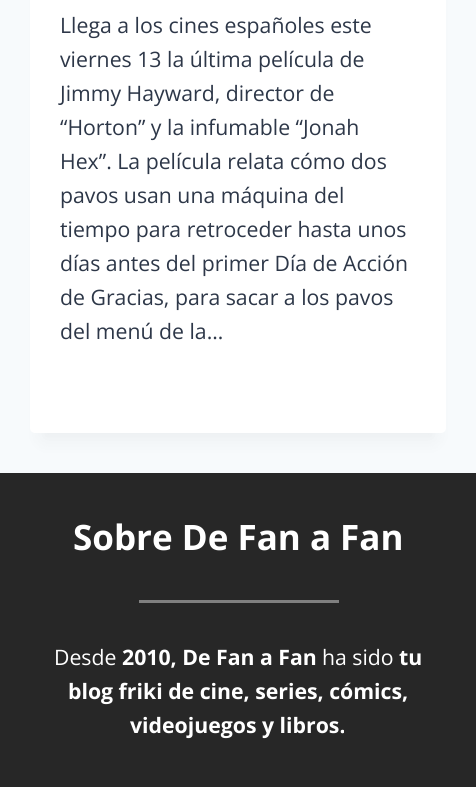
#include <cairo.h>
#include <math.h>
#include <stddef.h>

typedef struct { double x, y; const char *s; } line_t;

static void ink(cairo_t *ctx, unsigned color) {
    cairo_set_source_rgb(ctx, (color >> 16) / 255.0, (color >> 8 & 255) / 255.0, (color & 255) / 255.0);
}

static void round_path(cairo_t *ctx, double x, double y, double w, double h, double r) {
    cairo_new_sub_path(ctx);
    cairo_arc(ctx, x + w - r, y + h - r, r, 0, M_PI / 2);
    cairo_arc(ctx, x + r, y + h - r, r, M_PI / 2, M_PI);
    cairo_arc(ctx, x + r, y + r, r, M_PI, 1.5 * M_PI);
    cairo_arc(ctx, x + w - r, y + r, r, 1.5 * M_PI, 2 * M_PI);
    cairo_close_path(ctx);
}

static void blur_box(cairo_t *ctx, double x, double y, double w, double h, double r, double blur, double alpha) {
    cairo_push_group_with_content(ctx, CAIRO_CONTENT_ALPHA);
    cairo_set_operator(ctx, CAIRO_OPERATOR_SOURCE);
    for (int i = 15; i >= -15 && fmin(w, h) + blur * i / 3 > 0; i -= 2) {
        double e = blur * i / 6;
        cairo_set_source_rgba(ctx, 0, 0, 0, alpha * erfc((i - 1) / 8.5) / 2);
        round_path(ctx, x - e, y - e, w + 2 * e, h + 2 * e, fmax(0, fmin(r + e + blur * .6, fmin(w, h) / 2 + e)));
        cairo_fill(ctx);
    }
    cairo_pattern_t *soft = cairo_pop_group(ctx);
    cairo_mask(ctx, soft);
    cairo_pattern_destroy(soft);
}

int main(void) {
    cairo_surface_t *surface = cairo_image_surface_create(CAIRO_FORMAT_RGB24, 476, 787);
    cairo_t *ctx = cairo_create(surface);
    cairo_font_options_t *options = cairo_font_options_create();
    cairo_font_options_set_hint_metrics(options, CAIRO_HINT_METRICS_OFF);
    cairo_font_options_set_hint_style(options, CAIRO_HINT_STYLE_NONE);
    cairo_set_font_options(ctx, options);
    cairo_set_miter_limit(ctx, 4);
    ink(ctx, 0xF7FAFC);
    cairo_paint(ctx);
    ink(ctx, 0x000000);
    blur_box(ctx, 43, -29, 391, 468, 0, 9.5, 0.05);
    ink(ctx, 0xFFFFFF);
    round_path(ctx, 30, -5, 416, 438, 5);
    cairo_fill(ctx);
    cairo_select_font_face(ctx, "Open Sans", CAIRO_FONT_SLANT_NORMAL, CAIRO_FONT_WEIGHT_NORMAL);
    cairo_set_font_size(ctx, 21.25);
    ink(ctx, 0x2D3748);
    {
        static const line_t items[] = {
            {60, 33, "Llega a los cines españoles este"},
            {60, 67, "viernes 13 la última película de"},
            {60, 101, "Jimmy Hayward, director de"},
            {60, 135, "“Horton” y la infumable “Jonah"},
            {60, 169, "Hex”. La película relata cómo dos"},
            {60, 203, "pavos usan una máquina del"},
            {60, 237, "tiempo para retroceder hasta unos"},
            {60, 271, "días antes del primer Día de Acción"},
            {60, 305, "de Gracias, para sacar a los pavos"},
            {60, 339, "del menú de la…"},
        };
        for (size_t i = 0; i < sizeof items / sizeof *items; i++) {
            cairo_move_to(ctx, items[i].x, items[i].y);
            cairo_show_text(ctx, items[i].s);
        }
    }
    ink(ctx, 0x272727);
    cairo_rectangle(ctx, 0, 473, 476, 314);
    cairo_fill(ctx);
    cairo_select_font_face(ctx, "Open Sans", CAIRO_FONT_SLANT_NORMAL, CAIRO_FONT_WEIGHT_BOLD);
    cairo_set_font_size(ctx, 35);
    ink(ctx, 0xFFFFFF);
    cairo_move_to(ctx, 73, 550);
    cairo_show_text(ctx, "Sobre De Fan a Fan");
    ink(ctx, 0x808080);
    cairo_rectangle(ctx, 139, 600, 200, 3);
    cairo_fill(ctx);
    cairo_select_font_face(ctx, "Open Sans", CAIRO_FONT_SLANT_NORMAL, CAIRO_FONT_WEIGHT_NORMAL);
    cairo_set_font_size(ctx, 21.25);
    ink(ctx, 0xFFFFFF);
    cairo_move_to(ctx, 54, 665);
    cairo_show_text(ctx, "Desde");
    cairo_select_font_face(ctx, "Open Sans", CAIRO_FONT_SLANT_NORMAL, CAIRO_FONT_WEIGHT_BOLD);
    cairo_move_to(ctx, 122, 665);
    cairo_show_text(ctx, "2010, De Fan a Fan");
    cairo_select_font_face(ctx, "Open Sans", CAIRO_FONT_SLANT_NORMAL, CAIRO_FONT_WEIGHT_NORMAL);
    cairo_move_to(ctx, 322, 665);
    cairo_show_text(ctx, "ha sido");
    cairo_select_font_face(ctx, "Open Sans", CAIRO_FONT_SLANT_NORMAL, CAIRO_FONT_WEIGHT_BOLD);
    {
        static const line_t items[] = {
            {399, 665, "tu"},
            {68, 699, "blog friki de cine, series, cómics,"},
            {130, 733, "videojuegos y libros."},
        };
        for (size_t i = 0; i < sizeof items / sizeof *items; i++) {
            cairo_move_to(ctx, items[i].x, items[i].y);
            cairo_show_text(ctx, items[i].s);
        }
    }
    cairo_surface_write_to_png(surface, "image.png");
    cairo_font_options_destroy(options);
    cairo_destroy(ctx);
    cairo_surface_destroy(surface);
    return 0;
}
